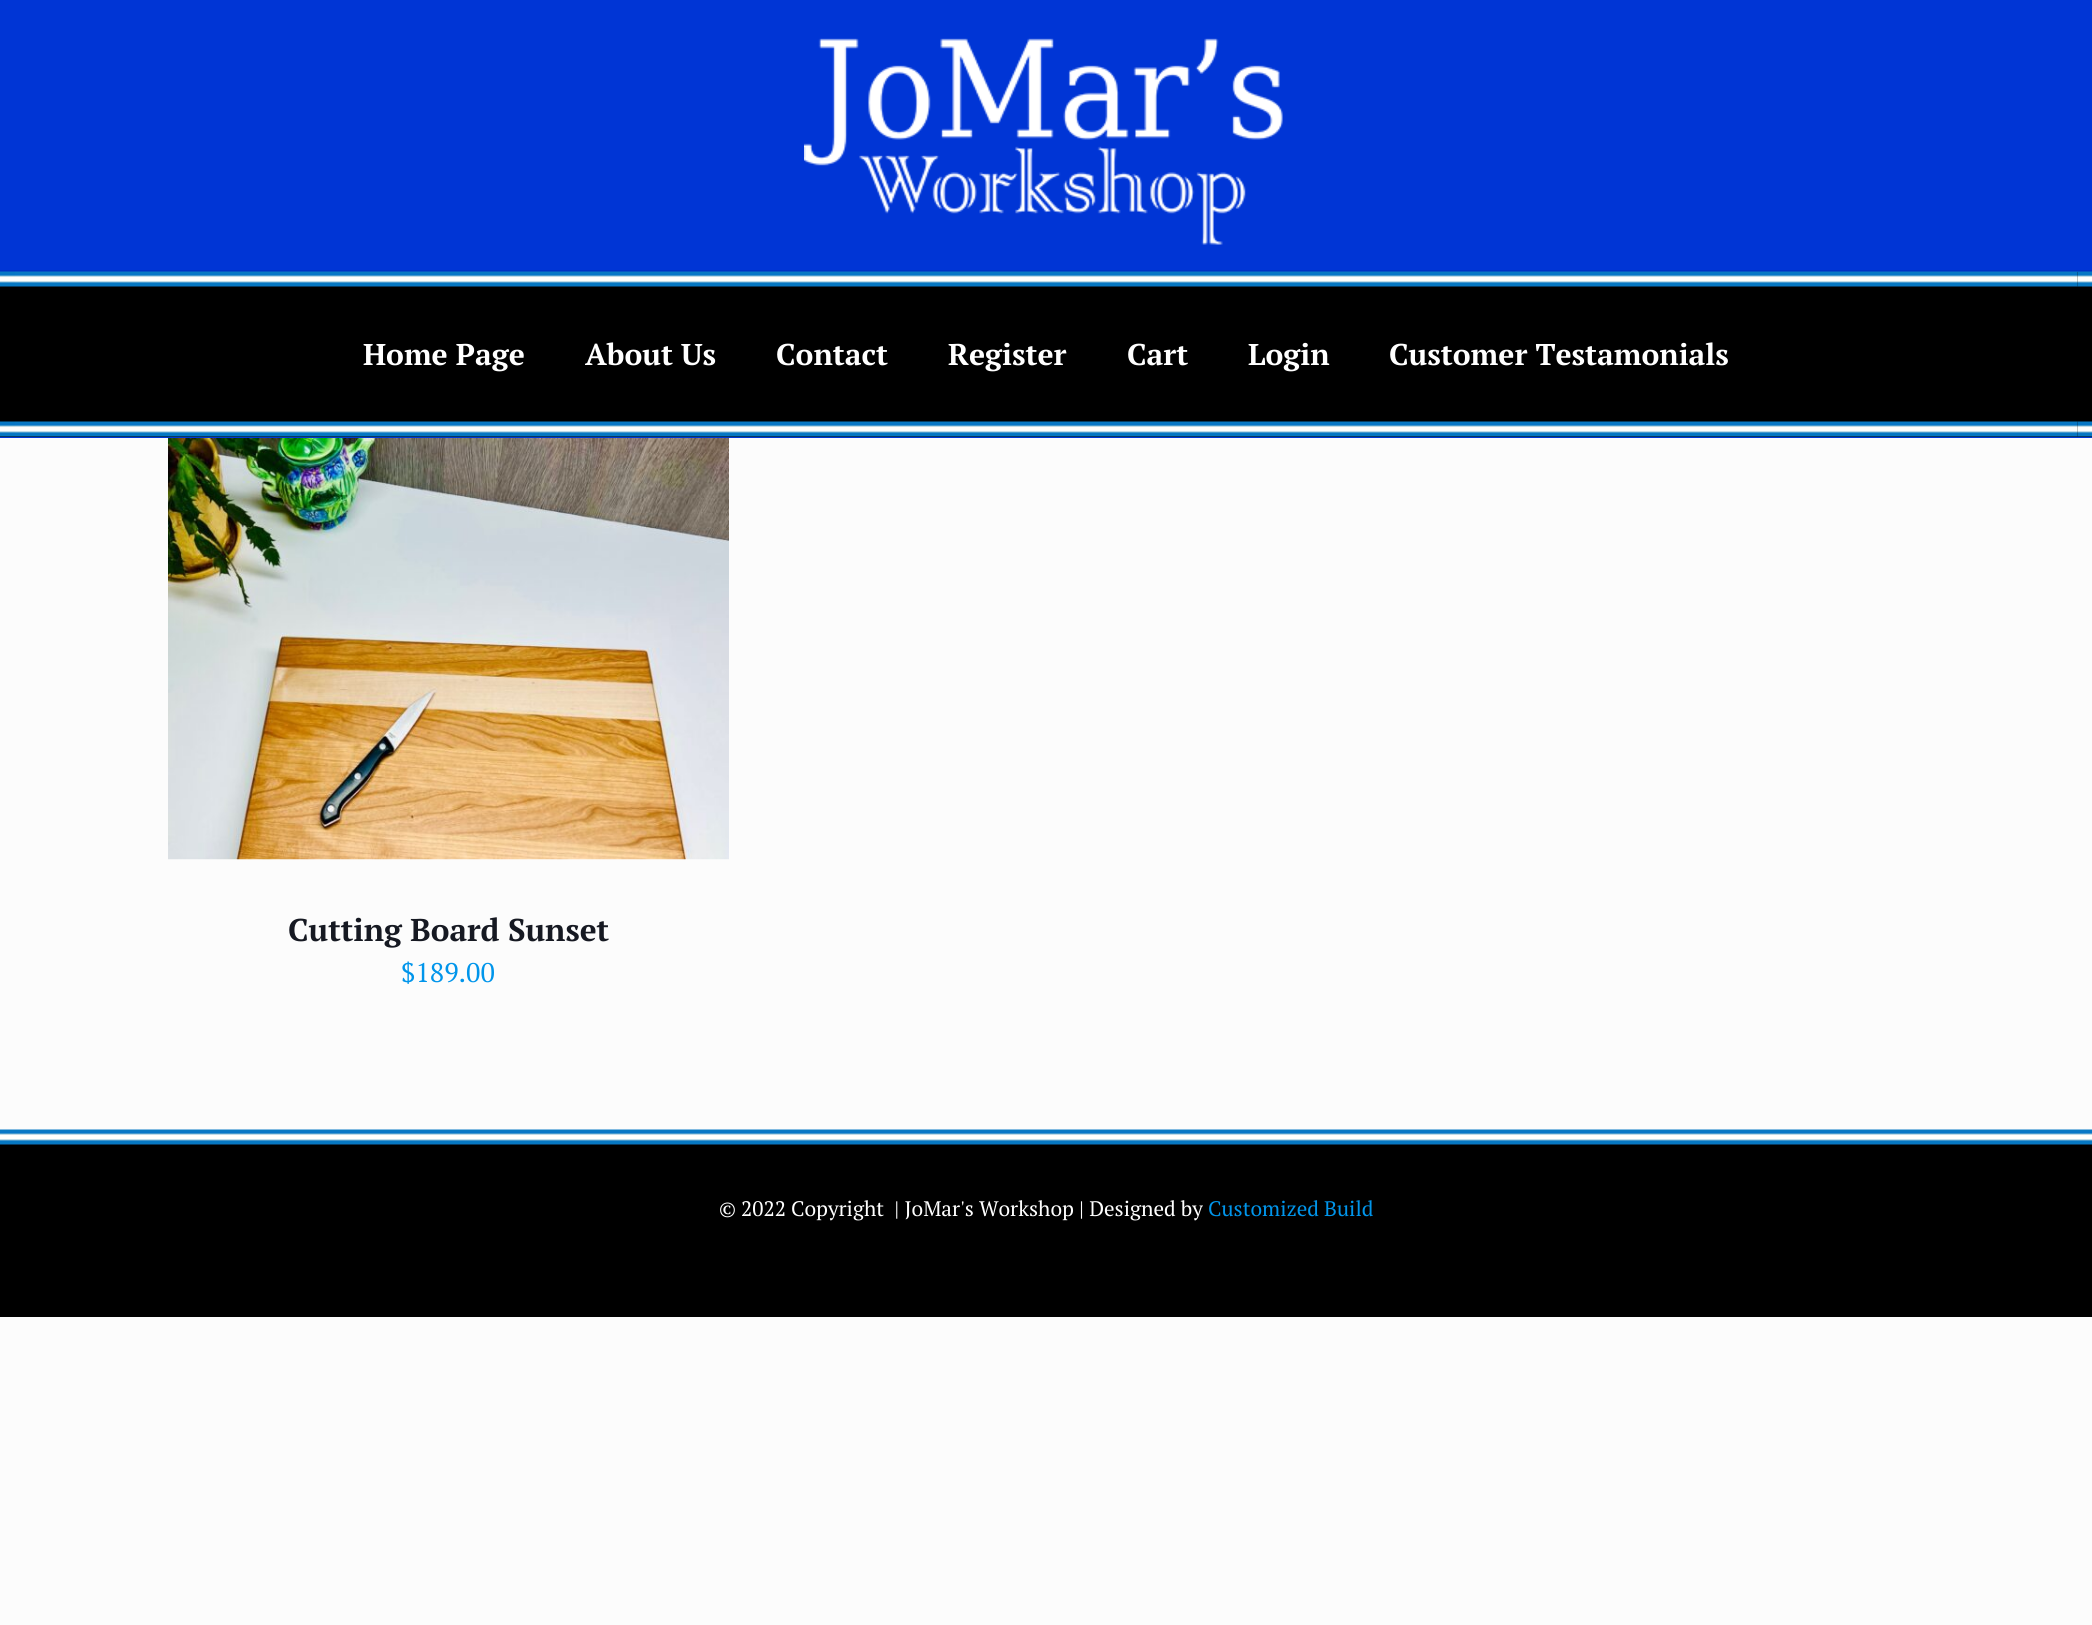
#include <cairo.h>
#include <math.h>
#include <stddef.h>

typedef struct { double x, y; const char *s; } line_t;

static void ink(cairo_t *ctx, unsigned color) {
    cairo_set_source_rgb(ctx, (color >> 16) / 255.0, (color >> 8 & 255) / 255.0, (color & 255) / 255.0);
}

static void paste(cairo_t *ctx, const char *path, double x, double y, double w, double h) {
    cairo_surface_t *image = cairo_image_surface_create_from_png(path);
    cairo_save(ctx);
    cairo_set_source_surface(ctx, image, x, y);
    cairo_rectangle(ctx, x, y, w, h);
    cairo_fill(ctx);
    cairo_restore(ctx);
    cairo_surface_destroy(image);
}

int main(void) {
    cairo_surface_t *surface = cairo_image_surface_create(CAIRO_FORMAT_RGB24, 2092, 1625);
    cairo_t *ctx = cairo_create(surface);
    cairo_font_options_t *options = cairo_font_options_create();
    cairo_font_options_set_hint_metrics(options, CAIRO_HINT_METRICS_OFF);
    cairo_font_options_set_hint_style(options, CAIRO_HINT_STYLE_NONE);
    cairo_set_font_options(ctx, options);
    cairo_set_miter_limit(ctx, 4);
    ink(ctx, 0xFCFCFC);
    cairo_paint(ctx);
    ink(ctx, 0x0035D5);
    cairo_rectangle(ctx, 0, 0, 2092, 438);
    cairo_fill(ctx);
    ink(ctx, 0x0031C4);
    cairo_rectangle(ctx, 0, 270, 2092, 2);
    cairo_fill(ctx);
    paste(ctx, "media/1.png", 804, 38, 479, 207);
    ink(ctx, 0x000000);
    cairo_rectangle(ctx, 0, 272, 2092, 165);
    cairo_fill(ctx);
    paste(ctx, "media/2.png", 0, 271, 2092, 166);
    cairo_select_font_face(ctx, "PT Serif", CAIRO_FONT_SLANT_NORMAL, CAIRO_FONT_WEIGHT_BOLD);
    cairo_set_font_size(ctx, 30);
    ink(ctx, 0xFFFFFF);
    {
        static const line_t items[] = {
            {363, 365, "Home Page"},
            {585, 365, "About Us"},
            {776, 365, "Contact"},
            {948, 365, "Register"},
            {1127, 365, "Cart"},
            {1248, 365, "Login"},
            {1389, 365, "Customer Testamonials"},
        };
        for (size_t i = 0; i < sizeof items / sizeof *items; i++) {
            cairo_move_to(ctx, items[i].x, items[i].y);
            cairo_show_text(ctx, items[i].s);
        }
    }
    paste(ctx, "media/3.png", 168, 438, 561, 422);
    cairo_set_font_size(ctx, 31.5);
    ink(ctx, 0x161922);
    cairo_move_to(ctx, 288, 941);
    cairo_show_text(ctx, "Cutting Board Sunset");
    cairo_select_font_face(ctx, "PT Serif", CAIRO_FONT_SLANT_NORMAL, CAIRO_FONT_WEIGHT_NORMAL);
    cairo_set_font_size(ctx, 27);
    ink(ctx, 0x0095EB);
    cairo_move_to(ctx, 401, 982);
    cairo_show_text(ctx, "$189.00");
    ink(ctx, 0x000000);
    cairo_rectangle(ctx, 0, 1144, 2092, 173);
    cairo_fill(ctx);
    paste(ctx, "media/4.png", 0, 1129, 2092, 16);
    cairo_set_font_size(ctx, 21);
    ink(ctx, 0xFFFFFF);
    cairo_move_to(ctx, 719, 1216);
    cairo_show_text(ctx, "© 2022 Copyright  | JoMar's Workshop | Designed by");
    ink(ctx, 0x0095EB);
    cairo_move_to(ctx, 1208, 1216);
    cairo_show_text(ctx, "Customized Build");
    cairo_surface_write_to_png(surface, "image.png");
    cairo_font_options_destroy(options);
    cairo_destroy(ctx);
    cairo_surface_destroy(surface);
    return 0;
}
